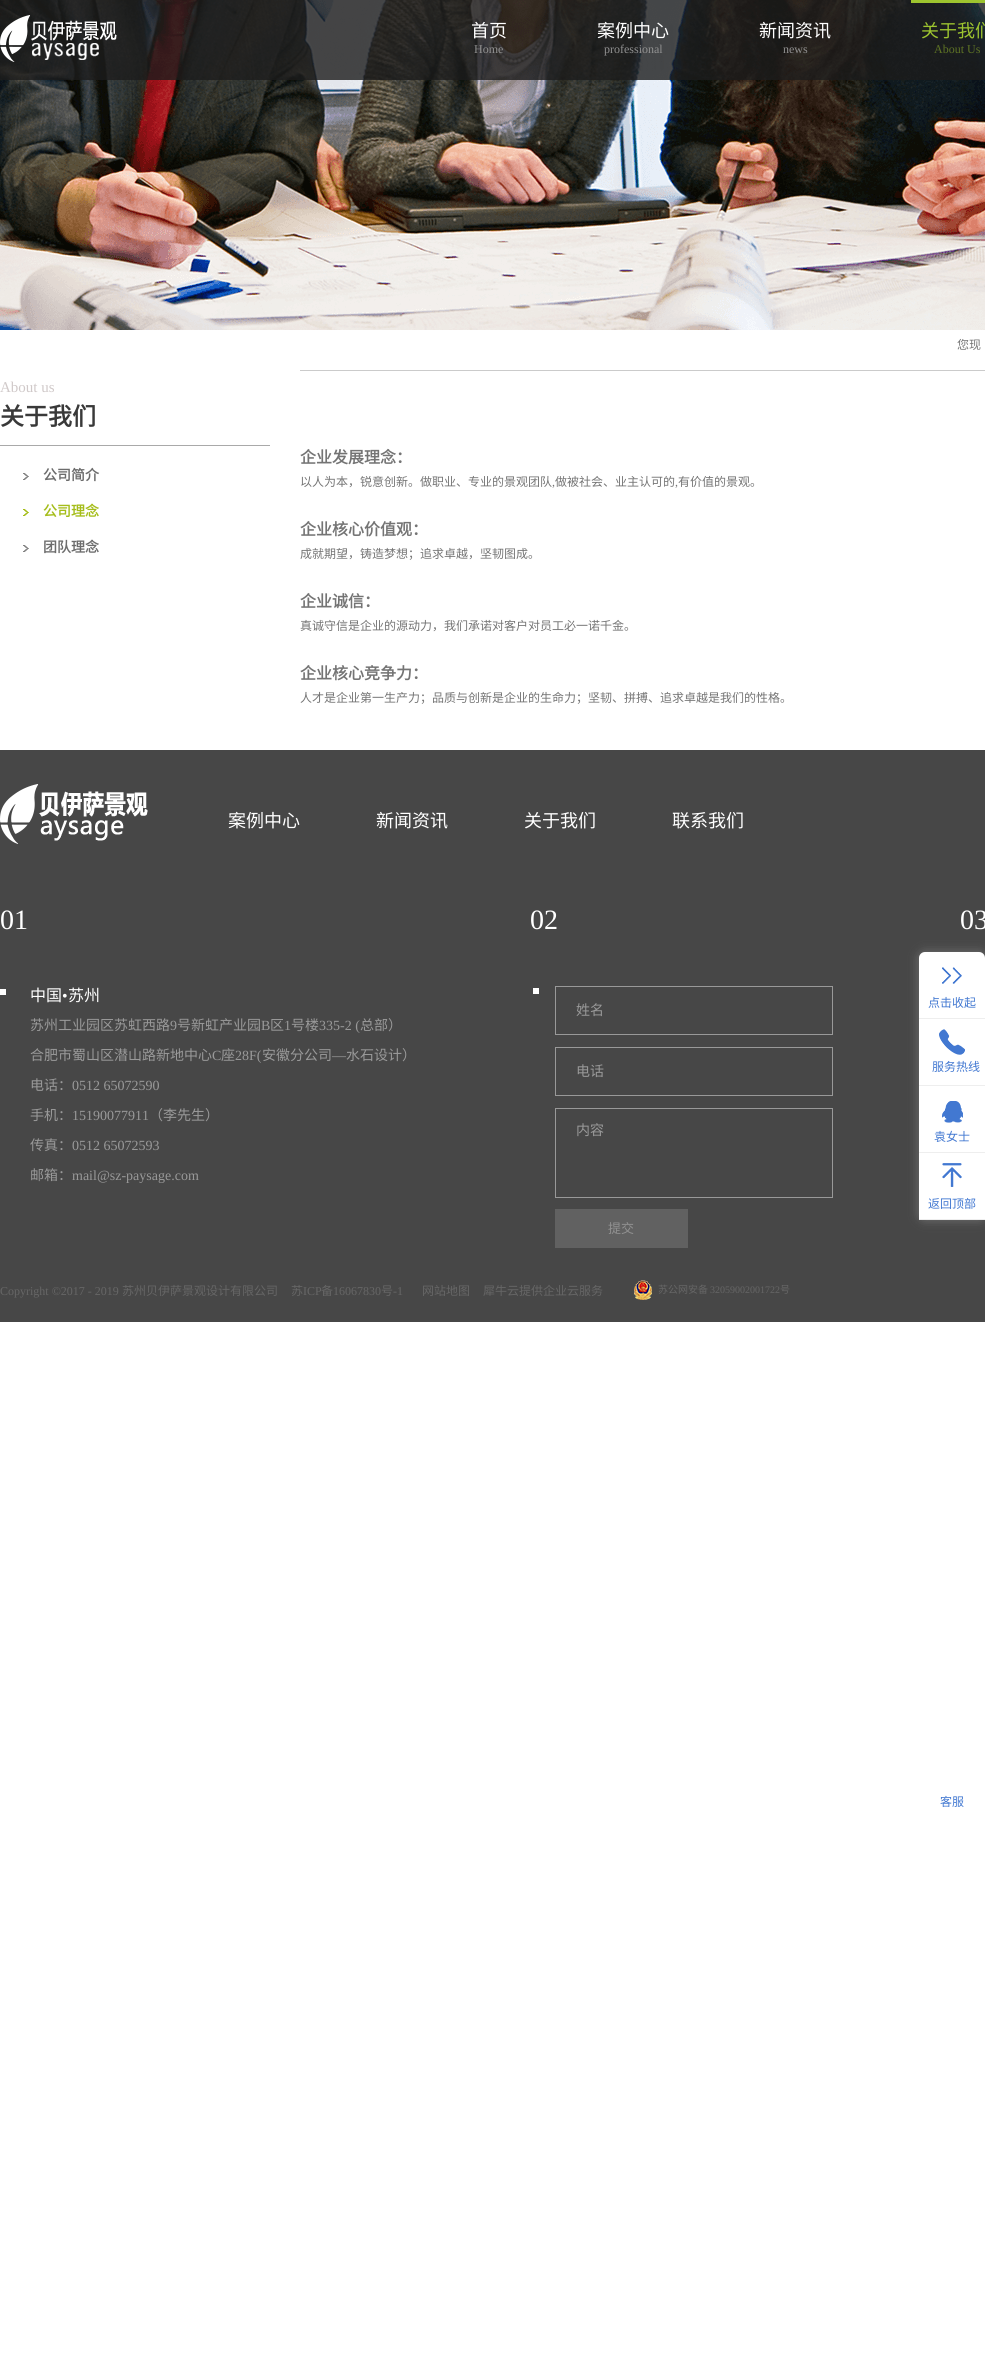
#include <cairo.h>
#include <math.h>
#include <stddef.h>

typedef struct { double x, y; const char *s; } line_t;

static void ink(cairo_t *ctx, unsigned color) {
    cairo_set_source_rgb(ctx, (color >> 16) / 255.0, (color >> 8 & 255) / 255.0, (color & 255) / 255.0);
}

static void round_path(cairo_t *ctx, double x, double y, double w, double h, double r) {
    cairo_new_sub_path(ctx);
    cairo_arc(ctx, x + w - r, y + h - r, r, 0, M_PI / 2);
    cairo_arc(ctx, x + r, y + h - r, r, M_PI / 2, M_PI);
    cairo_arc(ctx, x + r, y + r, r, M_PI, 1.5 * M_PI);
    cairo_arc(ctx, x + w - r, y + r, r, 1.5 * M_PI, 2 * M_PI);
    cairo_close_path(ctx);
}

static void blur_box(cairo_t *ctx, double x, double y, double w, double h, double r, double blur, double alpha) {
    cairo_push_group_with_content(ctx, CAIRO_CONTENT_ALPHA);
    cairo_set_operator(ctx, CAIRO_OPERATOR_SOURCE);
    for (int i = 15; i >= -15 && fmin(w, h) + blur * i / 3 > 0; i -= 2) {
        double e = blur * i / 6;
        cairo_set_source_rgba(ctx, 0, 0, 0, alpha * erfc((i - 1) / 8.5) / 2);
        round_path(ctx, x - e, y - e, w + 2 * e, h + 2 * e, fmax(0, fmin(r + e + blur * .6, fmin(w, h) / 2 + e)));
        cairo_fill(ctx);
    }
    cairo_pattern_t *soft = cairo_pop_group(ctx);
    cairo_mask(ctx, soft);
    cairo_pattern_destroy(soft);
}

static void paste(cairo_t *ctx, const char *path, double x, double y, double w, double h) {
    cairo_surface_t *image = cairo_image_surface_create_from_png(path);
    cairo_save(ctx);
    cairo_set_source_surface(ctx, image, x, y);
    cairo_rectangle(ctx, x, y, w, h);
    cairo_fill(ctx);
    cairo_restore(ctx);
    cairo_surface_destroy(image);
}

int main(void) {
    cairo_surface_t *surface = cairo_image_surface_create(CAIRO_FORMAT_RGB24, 985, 2380);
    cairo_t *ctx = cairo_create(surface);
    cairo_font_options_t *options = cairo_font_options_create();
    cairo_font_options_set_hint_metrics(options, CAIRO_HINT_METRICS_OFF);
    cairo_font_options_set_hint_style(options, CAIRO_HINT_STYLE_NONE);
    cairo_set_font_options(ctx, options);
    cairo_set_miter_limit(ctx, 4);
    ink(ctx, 0xFFFFFF);
    cairo_paint(ctx);
    paste(ctx, "media/1.png", 0, 0, 985, 330);
    cairo_set_source_rgba(ctx, 0.11, 0.11, 0.11, 0.8);
    cairo_rectangle(ctx, 0, 0, 985, 80);
    cairo_fill(ctx);
    paste(ctx, "media/2.png", 0, 15, 117, 47);
    cairo_select_font_face(ctx, "Noto Sans CJK SC", CAIRO_FONT_SLANT_NORMAL, CAIRO_FONT_WEIGHT_NORMAL);
    cairo_set_font_size(ctx, 18);
    ink(ctx, 0xFFFFFF);
    cairo_move_to(ctx, 471, 37);
    cairo_show_text(ctx, "首页");
    cairo_select_font_face(ctx, "Liberation Serif", CAIRO_FONT_SLANT_NORMAL, CAIRO_FONT_WEIGHT_NORMAL);
    cairo_set_font_size(ctx, 12);
    ink(ctx, 0x919191);
    cairo_move_to(ctx, 474, 53);
    cairo_show_text(ctx, "Home");
    cairo_select_font_face(ctx, "Noto Sans CJK SC", CAIRO_FONT_SLANT_NORMAL, CAIRO_FONT_WEIGHT_NORMAL);
    cairo_set_font_size(ctx, 18);
    ink(ctx, 0xFFFFFF);
    cairo_move_to(ctx, 597, 37);
    cairo_show_text(ctx, "案例中心");
    cairo_select_font_face(ctx, "Liberation Serif", CAIRO_FONT_SLANT_NORMAL, CAIRO_FONT_WEIGHT_NORMAL);
    cairo_set_font_size(ctx, 12);
    ink(ctx, 0x919191);
    cairo_move_to(ctx, 604, 53);
    cairo_show_text(ctx, "professional");
    cairo_select_font_face(ctx, "Noto Sans CJK SC", CAIRO_FONT_SLANT_NORMAL, CAIRO_FONT_WEIGHT_NORMAL);
    cairo_set_font_size(ctx, 18);
    ink(ctx, 0xFFFFFF);
    cairo_move_to(ctx, 759, 37);
    cairo_show_text(ctx, "新闻资讯");
    cairo_select_font_face(ctx, "Liberation Serif", CAIRO_FONT_SLANT_NORMAL, CAIRO_FONT_WEIGHT_NORMAL);
    cairo_set_font_size(ctx, 12);
    ink(ctx, 0x919191);
    cairo_move_to(ctx, 783, 53);
    cairo_show_text(ctx, "news");
    ink(ctx, 0x9DC42F);
    cairo_rectangle(ctx, 911, 0, 74, 3);
    cairo_fill(ctx);
    cairo_select_font_face(ctx, "Noto Sans CJK SC", CAIRO_FONT_SLANT_NORMAL, CAIRO_FONT_WEIGHT_NORMAL);
    cairo_set_font_size(ctx, 18);
    cairo_move_to(ctx, 921, 37);
    cairo_show_text(ctx, "关于我们");
    cairo_select_font_face(ctx, "Liberation Serif", CAIRO_FONT_SLANT_NORMAL, CAIRO_FONT_WEIGHT_NORMAL);
    cairo_set_font_size(ctx, 12);
    ink(ctx, 0x5D7224);
    cairo_move_to(ctx, 934, 53);
    cairo_show_text(ctx, "About Us");
    ink(ctx, 0xA9A9A9);
    cairo_rectangle(ctx, 0, 445, 270, 1);
    cairo_fill(ctx);
    cairo_set_font_size(ctx, 15);
    ink(ctx, 0xD0C9C9);
    cairo_move_to(ctx, 0, 392);
    cairo_show_text(ctx, "About us");
    cairo_select_font_face(ctx, "Noto Sans CJK SC", CAIRO_FONT_SLANT_NORMAL, CAIRO_FONT_WEIGHT_BOLD);
    cairo_set_font_size(ctx, 24);
    ink(ctx, 0x393939);
    cairo_move_to(ctx, 0, 425);
    cairo_show_text(ctx, "关于我们");
    paste(ctx, "media/3.png", 23, 473, 6, 7);
    cairo_set_font_size(ctx, 14);
    ink(ctx, 0x6C6C6C);
    cairo_move_to(ctx, 43, 480);
    cairo_show_text(ctx, "公司简介");
    paste(ctx, "media/4.png", 23, 509, 6, 7);
    ink(ctx, 0xA5BD1A);
    cairo_move_to(ctx, 43, 516);
    cairo_show_text(ctx, "公司理念");
    paste(ctx, "media/3.png", 23, 545, 6, 7);
    ink(ctx, 0x6C6C6C);
    cairo_move_to(ctx, 43, 552);
    cairo_show_text(ctx, "团队理念");
    ink(ctx, 0xCBCBCB);
    cairo_rectangle(ctx, 300, 370, 685, 1);
    cairo_fill(ctx);
    cairo_select_font_face(ctx, "Noto Sans CJK SC", CAIRO_FONT_SLANT_NORMAL, CAIRO_FONT_WEIGHT_NORMAL);
    cairo_set_font_size(ctx, 12);
    ink(ctx, 0x747474);
    cairo_move_to(ctx, 957, 349);
    cairo_show_text(ctx, "您现");
    cairo_select_font_face(ctx, "Noto Sans CJK SC", CAIRO_FONT_SLANT_NORMAL, CAIRO_FONT_WEIGHT_BOLD);
    cairo_set_font_size(ctx, 16);
    cairo_move_to(ctx, 300, 463);
    cairo_show_text(ctx, "企业发展理念：");
    cairo_select_font_face(ctx, "Noto Sans CJK SC", CAIRO_FONT_SLANT_NORMAL, CAIRO_FONT_WEIGHT_NORMAL);
    cairo_set_font_size(ctx, 12);
    cairo_move_to(ctx, 300, 486);
    cairo_show_text(ctx, "以人为本，锐意创新。做职业、专业的景观团队");
    cairo_select_font_face(ctx, "Liberation Serif", CAIRO_FONT_SLANT_NORMAL, CAIRO_FONT_WEIGHT_NORMAL);
    cairo_move_to(ctx, 552, 486);
    cairo_show_text(ctx, ",");
    cairo_select_font_face(ctx, "Noto Sans CJK SC", CAIRO_FONT_SLANT_NORMAL, CAIRO_FONT_WEIGHT_NORMAL);
    cairo_move_to(ctx, 555, 486);
    cairo_show_text(ctx, "做被社会、业主认可的");
    cairo_select_font_face(ctx, "Liberation Serif", CAIRO_FONT_SLANT_NORMAL, CAIRO_FONT_WEIGHT_NORMAL);
    cairo_move_to(ctx, 675, 486);
    cairo_show_text(ctx, ",");
    cairo_select_font_face(ctx, "Noto Sans CJK SC", CAIRO_FONT_SLANT_NORMAL, CAIRO_FONT_WEIGHT_NORMAL);
    cairo_move_to(ctx, 678, 486);
    cairo_show_text(ctx, "有价值的景观。");
    cairo_select_font_face(ctx, "Noto Sans CJK SC", CAIRO_FONT_SLANT_NORMAL, CAIRO_FONT_WEIGHT_BOLD);
    cairo_set_font_size(ctx, 16);
    cairo_move_to(ctx, 300, 535);
    cairo_show_text(ctx, "企业核心价值观：");
    cairo_select_font_face(ctx, "Noto Sans CJK SC", CAIRO_FONT_SLANT_NORMAL, CAIRO_FONT_WEIGHT_NORMAL);
    cairo_set_font_size(ctx, 12);
    cairo_move_to(ctx, 300, 558);
    cairo_show_text(ctx, "成就期望，铸造梦想；追求卓越，坚韧图成。");
    cairo_select_font_face(ctx, "Noto Sans CJK SC", CAIRO_FONT_SLANT_NORMAL, CAIRO_FONT_WEIGHT_BOLD);
    cairo_set_font_size(ctx, 16);
    cairo_move_to(ctx, 300, 607);
    cairo_show_text(ctx, "企业诚信：");
    cairo_select_font_face(ctx, "Noto Sans CJK SC", CAIRO_FONT_SLANT_NORMAL, CAIRO_FONT_WEIGHT_NORMAL);
    cairo_set_font_size(ctx, 12);
    cairo_move_to(ctx, 300, 630);
    cairo_show_text(ctx, "真诚守信是企业的源动力，我们承诺对客户对员工必一诺千金。");
    cairo_select_font_face(ctx, "Noto Sans CJK SC", CAIRO_FONT_SLANT_NORMAL, CAIRO_FONT_WEIGHT_BOLD);
    cairo_set_font_size(ctx, 16);
    cairo_move_to(ctx, 300, 679);
    cairo_show_text(ctx, "企业核心竞争力：");
    cairo_select_font_face(ctx, "Noto Sans CJK SC", CAIRO_FONT_SLANT_NORMAL, CAIRO_FONT_WEIGHT_NORMAL);
    cairo_set_font_size(ctx, 12);
    cairo_move_to(ctx, 300, 702);
    cairo_show_text(ctx, "人才是企业第一生产力；品质与创新是企业的生命力；坚韧、拼搏、追求卓越是我们的性格。");
    ink(ctx, 0x474747);
    cairo_rectangle(ctx, 0, 750, 985, 572);
    cairo_fill(ctx);
    paste(ctx, "media/5.png", 0, 784, 148, 60);
    cairo_set_font_size(ctx, 18);
    ink(ctx, 0xFFFFFF);
    {
        static const line_t items[] = {
            {228, 827, "案例中心"},
            {376, 827, "新闻资讯"},
            {524, 827, "关于我们"},
            {672, 827, "联系我们"},
        };
        for (size_t i = 0; i < sizeof items / sizeof *items; i++) {
            cairo_move_to(ctx, items[i].x, items[i].y);
            cairo_show_text(ctx, items[i].s);
        }
    }
    cairo_select_font_face(ctx, "Liberation Serif", CAIRO_FONT_SLANT_NORMAL, CAIRO_FONT_WEIGHT_NORMAL);
    cairo_set_font_size(ctx, 28);
    cairo_move_to(ctx, 0, 929);
    cairo_show_text(ctx, "01");
    cairo_rectangle(ctx, 0, 989, 6, 6);
    cairo_fill(ctx);
    cairo_select_font_face(ctx, "Noto Sans CJK SC", CAIRO_FONT_SLANT_NORMAL, CAIRO_FONT_WEIGHT_NORMAL);
    cairo_set_font_size(ctx, 16);
    cairo_move_to(ctx, 30, 1001);
    cairo_show_text(ctx, "中国");
    cairo_select_font_face(ctx, "Liberation Serif", CAIRO_FONT_SLANT_NORMAL, CAIRO_FONT_WEIGHT_NORMAL);
    cairo_move_to(ctx, 62, 1001);
    cairo_show_text(ctx, "•");
    cairo_select_font_face(ctx, "Noto Sans CJK SC", CAIRO_FONT_SLANT_NORMAL, CAIRO_FONT_WEIGHT_NORMAL);
    cairo_move_to(ctx, 68, 1001);
    cairo_show_text(ctx, "苏州");
    cairo_set_font_size(ctx, 14);
    ink(ctx, 0x999999);
    cairo_move_to(ctx, 30, 1030);
    cairo_show_text(ctx, "苏州工业园区苏虹西路");
    cairo_select_font_face(ctx, "Liberation Serif", CAIRO_FONT_SLANT_NORMAL, CAIRO_FONT_WEIGHT_NORMAL);
    cairo_move_to(ctx, 170, 1030);
    cairo_show_text(ctx, "9");
    cairo_select_font_face(ctx, "Noto Sans CJK SC", CAIRO_FONT_SLANT_NORMAL, CAIRO_FONT_WEIGHT_NORMAL);
    cairo_move_to(ctx, 177, 1030);
    cairo_show_text(ctx, "号新虹产业园");
    cairo_select_font_face(ctx, "Liberation Serif", CAIRO_FONT_SLANT_NORMAL, CAIRO_FONT_WEIGHT_NORMAL);
    cairo_move_to(ctx, 261, 1030);
    cairo_show_text(ctx, "B");
    cairo_select_font_face(ctx, "Noto Sans CJK SC", CAIRO_FONT_SLANT_NORMAL, CAIRO_FONT_WEIGHT_NORMAL);
    cairo_move_to(ctx, 270, 1030);
    cairo_show_text(ctx, "区");
    cairo_select_font_face(ctx, "Liberation Serif", CAIRO_FONT_SLANT_NORMAL, CAIRO_FONT_WEIGHT_NORMAL);
    cairo_move_to(ctx, 284, 1030);
    cairo_show_text(ctx, "1");
    cairo_select_font_face(ctx, "Noto Sans CJK SC", CAIRO_FONT_SLANT_NORMAL, CAIRO_FONT_WEIGHT_NORMAL);
    cairo_move_to(ctx, 291, 1030);
    cairo_show_text(ctx, "号楼");
    cairo_select_font_face(ctx, "Liberation Serif", CAIRO_FONT_SLANT_NORMAL, CAIRO_FONT_WEIGHT_NORMAL);
    cairo_move_to(ctx, 319, 1030);
    cairo_show_text(ctx, "335-2 (");
    cairo_select_font_face(ctx, "Noto Sans CJK SC", CAIRO_FONT_SLANT_NORMAL, CAIRO_FONT_WEIGHT_NORMAL);
    cairo_move_to(ctx, 360, 1030);
    cairo_show_text(ctx, "总部）");
    cairo_move_to(ctx, 30, 1060);
    cairo_show_text(ctx, "合肥市蜀山区潜山路新地中心");
    cairo_select_font_face(ctx, "Liberation Serif", CAIRO_FONT_SLANT_NORMAL, CAIRO_FONT_WEIGHT_NORMAL);
    cairo_move_to(ctx, 212, 1060);
    cairo_show_text(ctx, "C");
    cairo_select_font_face(ctx, "Noto Sans CJK SC", CAIRO_FONT_SLANT_NORMAL, CAIRO_FONT_WEIGHT_NORMAL);
    cairo_move_to(ctx, 221, 1060);
    cairo_show_text(ctx, "座");
    cairo_select_font_face(ctx, "Liberation Serif", CAIRO_FONT_SLANT_NORMAL, CAIRO_FONT_WEIGHT_NORMAL);
    cairo_move_to(ctx, 235, 1060);
    cairo_show_text(ctx, "28F(");
    cairo_select_font_face(ctx, "Noto Sans CJK SC", CAIRO_FONT_SLANT_NORMAL, CAIRO_FONT_WEIGHT_NORMAL);
    cairo_move_to(ctx, 262, 1060);
    cairo_show_text(ctx, "安徽分公司");
    cairo_select_font_face(ctx, "Liberation Serif", CAIRO_FONT_SLANT_NORMAL, CAIRO_FONT_WEIGHT_NORMAL);
    cairo_move_to(ctx, 332, 1060);
    cairo_show_text(ctx, "—");
    cairo_select_font_face(ctx, "Noto Sans CJK SC", CAIRO_FONT_SLANT_NORMAL, CAIRO_FONT_WEIGHT_NORMAL);
    cairo_move_to(ctx, 346, 1060);
    cairo_show_text(ctx, "水石设计）");
    cairo_move_to(ctx, 30, 1090);
    cairo_show_text(ctx, "电话：");
    cairo_select_font_face(ctx, "Liberation Serif", CAIRO_FONT_SLANT_NORMAL, CAIRO_FONT_WEIGHT_NORMAL);
    cairo_move_to(ctx, 72, 1090);
    cairo_show_text(ctx, "0512 65072590");
    cairo_select_font_face(ctx, "Noto Sans CJK SC", CAIRO_FONT_SLANT_NORMAL, CAIRO_FONT_WEIGHT_NORMAL);
    cairo_move_to(ctx, 30, 1120);
    cairo_show_text(ctx, "手机：");
    cairo_select_font_face(ctx, "Liberation Serif", CAIRO_FONT_SLANT_NORMAL, CAIRO_FONT_WEIGHT_NORMAL);
    cairo_move_to(ctx, 72, 1120);
    cairo_show_text(ctx, "15190077911");
    cairo_select_font_face(ctx, "Noto Sans CJK SC", CAIRO_FONT_SLANT_NORMAL, CAIRO_FONT_WEIGHT_NORMAL);
    cairo_move_to(ctx, 149, 1120);
    cairo_show_text(ctx, "（李先生）");
    cairo_move_to(ctx, 30, 1150);
    cairo_show_text(ctx, "传真：");
    cairo_select_font_face(ctx, "Liberation Serif", CAIRO_FONT_SLANT_NORMAL, CAIRO_FONT_WEIGHT_NORMAL);
    cairo_move_to(ctx, 72, 1150);
    cairo_show_text(ctx, "0512 65072593");
    cairo_select_font_face(ctx, "Noto Sans CJK SC", CAIRO_FONT_SLANT_NORMAL, CAIRO_FONT_WEIGHT_NORMAL);
    cairo_move_to(ctx, 30, 1180);
    cairo_show_text(ctx, "邮箱：");
    cairo_select_font_face(ctx, "Liberation Serif", CAIRO_FONT_SLANT_NORMAL, CAIRO_FONT_WEIGHT_NORMAL);
    cairo_move_to(ctx, 72, 1180);
    cairo_show_text(ctx, "mail@sz-paysage.com");
    cairo_set_font_size(ctx, 28);
    ink(ctx, 0xFFFFFF);
    cairo_move_to(ctx, 530, 929);
    cairo_show_text(ctx, "02");
    cairo_rectangle(ctx, 533, 988, 6, 6);
    cairo_fill(ctx);
    cairo_rectangle(ctx, 555.5, 986.5, 277, 48);
    ink(ctx, 0x999999);
    cairo_set_line_width(ctx, 1);
    cairo_stroke(ctx);
    cairo_select_font_face(ctx, "Noto Sans CJK SC", CAIRO_FONT_SLANT_NORMAL, CAIRO_FONT_WEIGHT_NORMAL);
    cairo_set_font_size(ctx, 14);
    cairo_move_to(ctx, 576, 1015);
    cairo_show_text(ctx, "姓名");
    cairo_rectangle(ctx, 555.5, 1047.5, 277, 48);
    cairo_stroke(ctx);
    cairo_move_to(ctx, 576, 1076);
    cairo_show_text(ctx, "电话");
    cairo_rectangle(ctx, 555.5, 1108.5, 277, 89);
    cairo_stroke(ctx);
    cairo_move_to(ctx, 576, 1135);
    cairo_show_text(ctx, "内容");
    ink(ctx, 0x616161);
    cairo_rectangle(ctx, 555, 1209, 133, 39);
    cairo_fill(ctx);
    cairo_set_font_size(ctx, 13);
    ink(ctx, 0x919191);
    cairo_move_to(ctx, 608, 1233);
    cairo_show_text(ctx, "提交");
    cairo_select_font_face(ctx, "Liberation Serif", CAIRO_FONT_SLANT_NORMAL, CAIRO_FONT_WEIGHT_NORMAL);
    cairo_set_font_size(ctx, 28);
    ink(ctx, 0xFFFFFF);
    cairo_move_to(ctx, 960, 929);
    cairo_show_text(ctx, "03");
    cairo_set_font_size(ctx, 12);
    ink(ctx, 0x666666);
    cairo_move_to(ctx, 0, 1295);
    cairo_show_text(ctx, "Copyright ©2017 - 2019");
    cairo_select_font_face(ctx, "Noto Sans CJK SC", CAIRO_FONT_SLANT_NORMAL, CAIRO_FONT_WEIGHT_NORMAL);
    cairo_move_to(ctx, 122, 1295);
    cairo_show_text(ctx, "苏州贝伊萨景观设计有限公司");
    cairo_move_to(ctx, 291, 1295);
    cairo_show_text(ctx, "苏");
    cairo_select_font_face(ctx, "Liberation Serif", CAIRO_FONT_SLANT_NORMAL, CAIRO_FONT_WEIGHT_NORMAL);
    cairo_move_to(ctx, 303, 1295);
    cairo_show_text(ctx, "ICP");
    cairo_select_font_face(ctx, "Noto Sans CJK SC", CAIRO_FONT_SLANT_NORMAL, CAIRO_FONT_WEIGHT_NORMAL);
    cairo_move_to(ctx, 321, 1295);
    cairo_show_text(ctx, "备");
    cairo_select_font_face(ctx, "Liberation Serif", CAIRO_FONT_SLANT_NORMAL, CAIRO_FONT_WEIGHT_NORMAL);
    cairo_move_to(ctx, 333, 1295);
    cairo_show_text(ctx, "16067830");
    cairo_select_font_face(ctx, "Noto Sans CJK SC", CAIRO_FONT_SLANT_NORMAL, CAIRO_FONT_WEIGHT_NORMAL);
    cairo_move_to(ctx, 381, 1295);
    cairo_show_text(ctx, "号");
    cairo_select_font_face(ctx, "Liberation Serif", CAIRO_FONT_SLANT_NORMAL, CAIRO_FONT_WEIGHT_NORMAL);
    cairo_move_to(ctx, 393, 1295);
    cairo_show_text(ctx, "-1");
    cairo_select_font_face(ctx, "Noto Sans CJK SC", CAIRO_FONT_SLANT_NORMAL, CAIRO_FONT_WEIGHT_NORMAL);
    cairo_move_to(ctx, 422, 1295);
    cairo_show_text(ctx, "网站地图");
    cairo_move_to(ctx, 483, 1295);
    cairo_show_text(ctx, "犀牛云提供企业云服务");
    paste(ctx, "media/6.png", 634, 1280, 18, 20);
    cairo_set_font_size(ctx, 10);
    cairo_move_to(ctx, 658, 1293);
    cairo_show_text(ctx, "苏公网安备");
    cairo_select_font_face(ctx, "Liberation Serif", CAIRO_FONT_SLANT_NORMAL, CAIRO_FONT_WEIGHT_NORMAL);
    cairo_move_to(ctx, 710, 1293);
    cairo_show_text(ctx, "32059002001722");
    cairo_select_font_face(ctx, "Noto Sans CJK SC", CAIRO_FONT_SLANT_NORMAL, CAIRO_FONT_WEIGHT_NORMAL);
    cairo_move_to(ctx, 780, 1293);
    cairo_show_text(ctx, "号");
    ink(ctx, 0x919191);
    blur_box(ctx, 919, 952, 66, 268, 6, 5, 0.59);
    ink(ctx, 0xFFFFFF);
    round_path(ctx, 919, 952, 66, 268, 6);
    cairo_fill(ctx);
    paste(ctx, "media/7.png", 942, 967, 20, 17);
    ink(ctx, 0xEEEEEE);
    cairo_rectangle(ctx, 919, 1018, 66, 1);
    cairo_fill(ctx);
    cairo_set_font_size(ctx, 12);
    ink(ctx, 0x4278D1);
    cairo_move_to(ctx, 928, 1007);
    cairo_show_text(ctx, "点击收起");
    ink(ctx, 0xEEEEEE);
    cairo_rectangle(ctx, 919, 1085, 66, 1);
    cairo_fill(ctx);
    paste(ctx, "media/8.png", 939, 1029, 26, 26);
    ink(ctx, 0x4278D1);
    cairo_move_to(ctx, 932, 1071);
    cairo_show_text(ctx, "服务热线");
    ink(ctx, 0xEEEEEE);
    cairo_rectangle(ctx, 919, 1152, 66, 1);
    cairo_fill(ctx);
    paste(ctx, "media/9.png", 942, 1101, 21, 22);
    ink(ctx, 0x4278D1);
    cairo_move_to(ctx, 934, 1141);
    cairo_show_text(ctx, "袁女士");
    cairo_move_to(ctx, 940, 1806);
    cairo_show_text(ctx, "客服");
    ink(ctx, 0xFFFFFF);
    cairo_rectangle(ctx, 919, 1214, 66, 5);
    cairo_fill(ctx);
    paste(ctx, "media/10.png", 942, 1163, 20, 24);
    ink(ctx, 0xEEEEEE);
    cairo_rectangle(ctx, 919, 1219, 66, 1);
    cairo_fill(ctx);
    ink(ctx, 0x4278D1);
    cairo_move_to(ctx, 928, 1208);
    cairo_show_text(ctx, "返回顶部");
    cairo_surface_write_to_png(surface, "image.png");
    cairo_font_options_destroy(options);
    cairo_destroy(ctx);
    cairo_surface_destroy(surface);
    return 0;
}
